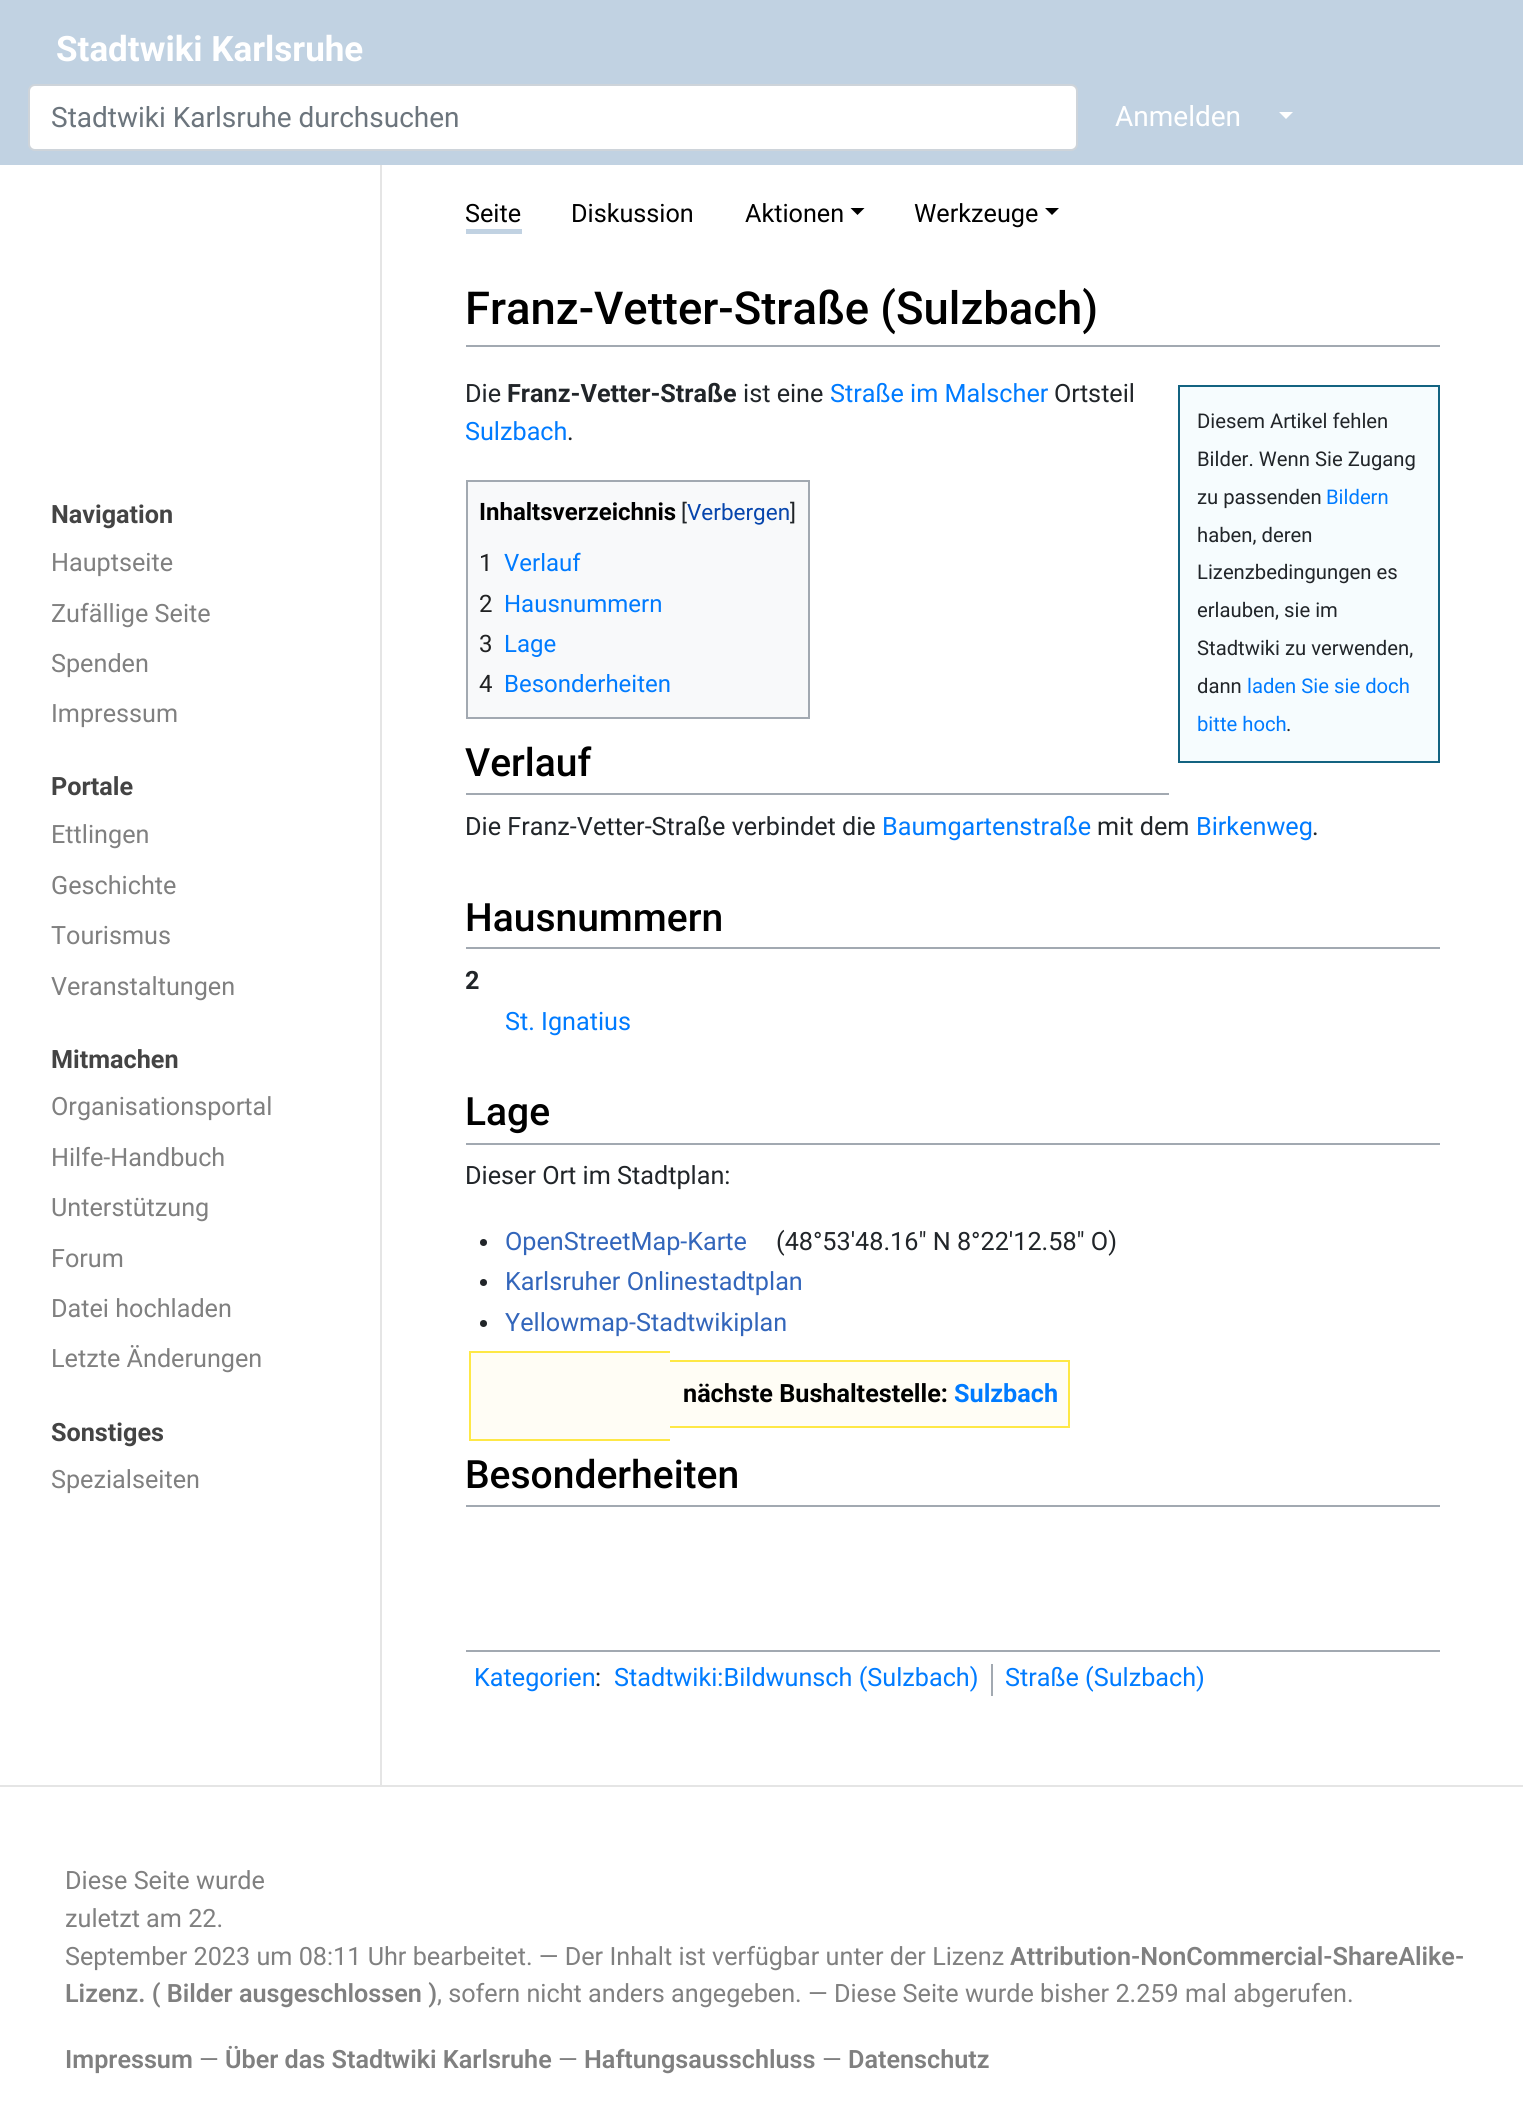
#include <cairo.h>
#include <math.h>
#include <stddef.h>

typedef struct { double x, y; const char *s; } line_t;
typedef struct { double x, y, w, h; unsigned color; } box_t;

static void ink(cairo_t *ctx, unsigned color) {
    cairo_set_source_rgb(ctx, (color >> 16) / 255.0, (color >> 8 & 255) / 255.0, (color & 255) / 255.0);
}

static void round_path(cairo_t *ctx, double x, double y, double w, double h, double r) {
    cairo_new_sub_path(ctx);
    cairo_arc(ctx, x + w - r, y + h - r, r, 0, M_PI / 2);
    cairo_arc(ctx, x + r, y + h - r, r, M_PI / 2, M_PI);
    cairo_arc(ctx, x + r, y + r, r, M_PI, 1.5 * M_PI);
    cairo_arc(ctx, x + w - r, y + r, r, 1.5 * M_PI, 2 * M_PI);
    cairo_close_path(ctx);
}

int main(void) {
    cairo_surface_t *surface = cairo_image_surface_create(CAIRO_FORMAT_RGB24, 1523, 2102);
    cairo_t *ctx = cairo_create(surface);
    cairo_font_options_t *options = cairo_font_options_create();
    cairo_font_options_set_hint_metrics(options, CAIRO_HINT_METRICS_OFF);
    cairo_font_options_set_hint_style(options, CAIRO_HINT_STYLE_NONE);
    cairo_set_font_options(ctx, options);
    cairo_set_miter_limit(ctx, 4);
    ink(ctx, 0xFFFFFF);
    cairo_paint(ctx);
    ink(ctx, 0xC1D2E2);
    cairo_rectangle(ctx, 0, 0, 1523, 165);
    cairo_fill(ctx);
    cairo_select_font_face(ctx, "Roboto", CAIRO_FONT_SLANT_NORMAL, CAIRO_FONT_WEIGHT_BOLD);
    cairo_set_font_size(ctx, 35);
    ink(ctx, 0xFFFFFF);
    cairo_move_to(ctx, 56, 61);
    cairo_show_text(ctx, "Stadtwiki Karlsruhe");
    round_path(ctx, 29, 85, 1048, 65, 6);
    cairo_fill_preserve(ctx);
    ink(ctx, 0xCED4DA);
    cairo_stroke(ctx);
    cairo_select_font_face(ctx, "Roboto", CAIRO_FONT_SLANT_NORMAL, CAIRO_FONT_WEIGHT_NORMAL);
    cairo_set_font_size(ctx, 28);
    ink(ctx, 0x6C757D);
    cairo_move_to(ctx, 51, 127);
    cairo_show_text(ctx, "Stadtwiki Karlsruhe durchsuchen");
    ink(ctx, 0xFFFFFF);
    cairo_move_to(ctx, 1115, 126);
    cairo_show_text(ctx, "Anmelden");
    cairo_new_path(ctx);
    cairo_move_to(ctx, 1279, 112);
    cairo_line_to(ctx, 1293, 112);
    cairo_line_to(ctx, 1286, 119);
    cairo_close_path(ctx);
    cairo_fill(ctx);
    ink(ctx, 0xE5E5E5);
    cairo_rectangle(ctx, 380, 165, 2, 1620);
    cairo_fill(ctx);
    cairo_select_font_face(ctx, "Roboto", CAIRO_FONT_SLANT_NORMAL, CAIRO_FONT_WEIGHT_BOLD);
    cairo_set_font_size(ctx, 25.2);
    ink(ctx, 0x444444);
    cairo_move_to(ctx, 51, 523);
    cairo_show_text(ctx, "Navigation");
    cairo_select_font_face(ctx, "Roboto", CAIRO_FONT_SLANT_NORMAL, CAIRO_FONT_WEIGHT_NORMAL);
    ink(ctx, 0x808080);
    {
        static const line_t items[] = {
            {51, 571, "Hauptseite"},
            {51, 622, "Zufällige Seite"},
            {51, 672, "Spenden"},
            {51, 722, "Impressum"},
        };
        for (size_t i = 0; i < sizeof items / sizeof *items; i++) {
            cairo_move_to(ctx, items[i].x, items[i].y);
            cairo_show_text(ctx, items[i].s);
        }
    }
    cairo_select_font_face(ctx, "Roboto", CAIRO_FONT_SLANT_NORMAL, CAIRO_FONT_WEIGHT_BOLD);
    ink(ctx, 0x444444);
    cairo_move_to(ctx, 51, 795);
    cairo_show_text(ctx, "Portale");
    cairo_select_font_face(ctx, "Roboto", CAIRO_FONT_SLANT_NORMAL, CAIRO_FONT_WEIGHT_NORMAL);
    ink(ctx, 0x808080);
    {
        static const line_t items[] = {
            {51, 843, "Ettlingen"},
            {51, 894, "Geschichte"},
            {51, 944, "Tourismus"},
            {51, 995, "Veranstaltungen"},
        };
        for (size_t i = 0; i < sizeof items / sizeof *items; i++) {
            cairo_move_to(ctx, items[i].x, items[i].y);
            cairo_show_text(ctx, items[i].s);
        }
    }
    cairo_select_font_face(ctx, "Roboto", CAIRO_FONT_SLANT_NORMAL, CAIRO_FONT_WEIGHT_BOLD);
    ink(ctx, 0x444444);
    cairo_move_to(ctx, 51, 1068);
    cairo_show_text(ctx, "Mitmachen");
    cairo_select_font_face(ctx, "Roboto", CAIRO_FONT_SLANT_NORMAL, CAIRO_FONT_WEIGHT_NORMAL);
    ink(ctx, 0x808080);
    {
        static const line_t items[] = {
            {51, 1115, "Organisationsportal"},
            {51, 1166, "Hilfe-Handbuch"},
            {51, 1216, "Unterstützung"},
            {51, 1267, "Forum"},
            {51, 1317, "Datei hochladen"},
            {51, 1367, "Letzte Änderungen"},
        };
        for (size_t i = 0; i < sizeof items / sizeof *items; i++) {
            cairo_move_to(ctx, items[i].x, items[i].y);
            cairo_show_text(ctx, items[i].s);
        }
    }
    cairo_select_font_face(ctx, "Roboto", CAIRO_FONT_SLANT_NORMAL, CAIRO_FONT_WEIGHT_BOLD);
    ink(ctx, 0x444444);
    cairo_move_to(ctx, 51, 1441);
    cairo_show_text(ctx, "Sonstiges");
    cairo_select_font_face(ctx, "Roboto", CAIRO_FONT_SLANT_NORMAL, CAIRO_FONT_WEIGHT_NORMAL);
    ink(ctx, 0x808080);
    cairo_move_to(ctx, 51, 1488);
    cairo_show_text(ctx, "Spezialseiten");
    ink(ctx, 0x000000);
    cairo_move_to(ctx, 465, 222);
    cairo_show_text(ctx, "Seite");
    ink(ctx, 0xC1D2E2);
    cairo_rectangle(ctx, 466, 229, 56, 5);
    cairo_fill(ctx);
    ink(ctx, 0x000000);
    cairo_move_to(ctx, 571, 222);
    cairo_show_text(ctx, "Diskussion");
    cairo_move_to(ctx, 745, 222);
    cairo_show_text(ctx, "Aktionen");
    cairo_new_path(ctx);
    cairo_move_to(ctx, 850.5, 208);
    cairo_line_to(ctx, 864.5, 208);
    cairo_line_to(ctx, 857.5, 215);
    cairo_close_path(ctx);
    cairo_fill(ctx);
    cairo_move_to(ctx, 914, 222);
    cairo_show_text(ctx, "Werkzeuge");
    cairo_new_path(ctx);
    cairo_move_to(ctx, 1045, 208);
    cairo_line_to(ctx, 1059, 208);
    cairo_line_to(ctx, 1052, 215);
    cairo_close_path(ctx);
    cairo_fill(ctx);
    ink(ctx, 0xA2A9B1);
    cairo_rectangle(ctx, 466, 345, 974, 2);
    cairo_fill(ctx);
    cairo_select_font_face(ctx, "Roboto Medium", CAIRO_FONT_SLANT_NORMAL, CAIRO_FONT_WEIGHT_NORMAL);
    cairo_set_font_size(ctx, 45.4);
    ink(ctx, 0x000000);
    cairo_move_to(ctx, 465, 324);
    cairo_show_text(ctx, "Franz-Vetter-Straße (Sulzbach)");
    cairo_select_font_face(ctx, "Roboto", CAIRO_FONT_SLANT_NORMAL, CAIRO_FONT_WEIGHT_NORMAL);
    cairo_set_font_size(ctx, 25.2);
    ink(ctx, 0x212529);
    cairo_move_to(ctx, 465, 402);
    cairo_show_text(ctx, "Die");
    cairo_select_font_face(ctx, "Roboto", CAIRO_FONT_SLANT_NORMAL, CAIRO_FONT_WEIGHT_BOLD);
    cairo_move_to(ctx, 507, 402);
    cairo_show_text(ctx, "Franz-Vetter-Straße");
    cairo_select_font_face(ctx, "Roboto", CAIRO_FONT_SLANT_NORMAL, CAIRO_FONT_WEIGHT_NORMAL);
    cairo_move_to(ctx, 743, 402);
    cairo_show_text(ctx, "ist eine");
    ink(ctx, 0x007BFF);
    cairo_move_to(ctx, 830, 402);
    cairo_show_text(ctx, "Straße im Malscher");
    ink(ctx, 0x212529);
    cairo_move_to(ctx, 1054, 402);
    cairo_show_text(ctx, "Ortsteil");
    ink(ctx, 0x007BFF);
    cairo_move_to(ctx, 465, 440);
    cairo_show_text(ctx, "Sulzbach");
    ink(ctx, 0x212529);
    cairo_move_to(ctx, 567, 440);
    cairo_show_text(ctx, ".");
    ink(ctx, 0xF6FCFE);
    cairo_rectangle(ctx, 1179, 386, 260, 376);
    cairo_fill_preserve(ctx);
    ink(ctx, 0x136381);
    cairo_stroke(ctx);
    cairo_set_font_size(ctx, 20.25);
    ink(ctx, 0x212529);
    {
        static const line_t items[] = {
            {1197, 428, "Diesem Artikel fehlen"},
            {1197, 466, "Bilder. Wenn Sie Zugang"},
            {1197, 504, "zu passenden"},
        };
        for (size_t i = 0; i < sizeof items / sizeof *items; i++) {
            cairo_move_to(ctx, items[i].x, items[i].y);
            cairo_show_text(ctx, items[i].s);
        }
    }
    ink(ctx, 0x007BFF);
    cairo_move_to(ctx, 1326, 504);
    cairo_show_text(ctx, "Bildern");
    ink(ctx, 0x212529);
    {
        static const line_t items[] = {
            {1197, 542, "haben, deren"},
            {1197, 579, "Lizenzbedingungen es"},
            {1197, 617, "erlauben, sie im"},
            {1197, 655, "Stadtwiki zu verwenden,"},
            {1197, 693, "dann"},
        };
        for (size_t i = 0; i < sizeof items / sizeof *items; i++) {
            cairo_move_to(ctx, items[i].x, items[i].y);
            cairo_show_text(ctx, items[i].s);
        }
    }
    ink(ctx, 0x007BFF);
    cairo_move_to(ctx, 1247, 693);
    cairo_show_text(ctx, "laden Sie sie doch");
    cairo_move_to(ctx, 1197, 731);
    cairo_show_text(ctx, "bitte hoch");
    ink(ctx, 0x212529);
    cairo_move_to(ctx, 1286, 731);
    cairo_show_text(ctx, ".");
    ink(ctx, 0xF8F9FA);
    cairo_rectangle(ctx, 467, 481, 342, 237);
    cairo_fill_preserve(ctx);
    ink(ctx, 0xA2A9B1);
    cairo_stroke(ctx);
    cairo_select_font_face(ctx, "Roboto", CAIRO_FONT_SLANT_NORMAL, CAIRO_FONT_WEIGHT_BOLD);
    cairo_set_font_size(ctx, 24);
    ink(ctx, 0x000000);
    cairo_move_to(ctx, 479, 520);
    cairo_show_text(ctx, "Inhaltsverzeichnis");
    cairo_select_font_face(ctx, "Roboto", CAIRO_FONT_SLANT_NORMAL, CAIRO_FONT_WEIGHT_NORMAL);
    cairo_set_font_size(ctx, 22.5);
    ink(ctx, 0x212529);
    cairo_move_to(ctx, 681, 520);
    cairo_show_text(ctx, "[");
    ink(ctx, 0x0645AD);
    cairo_move_to(ctx, 687, 520);
    cairo_show_text(ctx, "Verbergen");
    ink(ctx, 0x212529);
    cairo_move_to(ctx, 790, 520);
    cairo_show_text(ctx, "]");
    cairo_set_font_size(ctx, 24);
    ink(ctx, 0x202122);
    cairo_move_to(ctx, 479, 571);
    cairo_show_text(ctx, "1");
    ink(ctx, 0x007BFF);
    cairo_move_to(ctx, 504, 571);
    cairo_show_text(ctx, "Verlauf");
    ink(ctx, 0x202122);
    cairo_move_to(ctx, 479, 612);
    cairo_show_text(ctx, "2");
    ink(ctx, 0x007BFF);
    cairo_move_to(ctx, 504, 612);
    cairo_show_text(ctx, "Hausnummern");
    ink(ctx, 0x202122);
    cairo_move_to(ctx, 479, 652);
    cairo_show_text(ctx, "3");
    ink(ctx, 0x007BFF);
    cairo_move_to(ctx, 504, 652);
    cairo_show_text(ctx, "Lage");
    ink(ctx, 0x202122);
    cairo_move_to(ctx, 479, 692);
    cairo_show_text(ctx, "4");
    ink(ctx, 0x007BFF);
    cairo_move_to(ctx, 504, 692);
    cairo_show_text(ctx, "Besonderheiten");
    ink(ctx, 0xA2A9B1);
    cairo_rectangle(ctx, 466, 793, 703, 2);
    cairo_fill(ctx);
    cairo_select_font_face(ctx, "Roboto Medium", CAIRO_FONT_SLANT_NORMAL, CAIRO_FONT_WEIGHT_NORMAL);
    cairo_set_font_size(ctx, 39);
    ink(ctx, 0x000000);
    cairo_move_to(ctx, 465, 776);
    cairo_show_text(ctx, "Verlauf");
    cairo_select_font_face(ctx, "Roboto", CAIRO_FONT_SLANT_NORMAL, CAIRO_FONT_WEIGHT_NORMAL);
    cairo_set_font_size(ctx, 25.2);
    ink(ctx, 0x212529);
    cairo_move_to(ctx, 465, 835);
    cairo_show_text(ctx, "Die Franz-Vetter-Straße verbindet die");
    ink(ctx, 0x007BFF);
    cairo_move_to(ctx, 882, 835);
    cairo_show_text(ctx, "Baumgartenstraße");
    ink(ctx, 0x212529);
    cairo_move_to(ctx, 1097, 835);
    cairo_show_text(ctx, "mit dem");
    ink(ctx, 0x007BFF);
    cairo_move_to(ctx, 1196, 835);
    cairo_show_text(ctx, "Birkenweg");
    ink(ctx, 0x212529);
    cairo_move_to(ctx, 1312, 835);
    cairo_show_text(ctx, ".");
    ink(ctx, 0xA2A9B1);
    cairo_rectangle(ctx, 466, 947, 974, 2);
    cairo_fill(ctx);
    cairo_select_font_face(ctx, "Roboto Medium", CAIRO_FONT_SLANT_NORMAL, CAIRO_FONT_WEIGHT_NORMAL);
    cairo_set_font_size(ctx, 39);
    ink(ctx, 0x000000);
    cairo_move_to(ctx, 465, 931);
    cairo_show_text(ctx, "Hausnummern");
    cairo_select_font_face(ctx, "Roboto", CAIRO_FONT_SLANT_NORMAL, CAIRO_FONT_WEIGHT_BOLD);
    cairo_set_font_size(ctx, 25.2);
    ink(ctx, 0x212529);
    cairo_move_to(ctx, 465, 989);
    cairo_show_text(ctx, "2");
    cairo_select_font_face(ctx, "Roboto", CAIRO_FONT_SLANT_NORMAL, CAIRO_FONT_WEIGHT_NORMAL);
    ink(ctx, 0x007BFF);
    cairo_move_to(ctx, 505, 1030);
    cairo_show_text(ctx, "St. Ignatius");
    ink(ctx, 0xA2A9B1);
    cairo_rectangle(ctx, 466, 1143, 974, 2);
    cairo_fill(ctx);
    cairo_select_font_face(ctx, "Roboto Medium", CAIRO_FONT_SLANT_NORMAL, CAIRO_FONT_WEIGHT_NORMAL);
    cairo_set_font_size(ctx, 39);
    ink(ctx, 0x000000);
    cairo_move_to(ctx, 465, 1125);
    cairo_show_text(ctx, "Lage");
    cairo_select_font_face(ctx, "Roboto", CAIRO_FONT_SLANT_NORMAL, CAIRO_FONT_WEIGHT_NORMAL);
    cairo_set_font_size(ctx, 25.2);
    ink(ctx, 0x212529);
    cairo_move_to(ctx, 465, 1184);
    cairo_show_text(ctx, "Dieser Ort im Stadtplan:");
    cairo_new_path(ctx);
    cairo_arc(ctx, 483.5, 1242.5, 3.5, 0, 2 * M_PI);
    cairo_fill(ctx);
    ink(ctx, 0x3366BB);
    cairo_move_to(ctx, 505, 1250);
    cairo_show_text(ctx, "OpenStreetMap-Karte");
    ink(ctx, 0x212529);
    cairo_move_to(ctx, 776, 1250);
    cairo_show_text(ctx, "(48°53'48.16\" N 8°22'12.58\" O)");
    cairo_new_path(ctx);
    cairo_arc(ctx, 483.5, 1282.5, 3.5, 0, 2 * M_PI);
    cairo_fill(ctx);
    ink(ctx, 0x3366BB);
    cairo_move_to(ctx, 505, 1290);
    cairo_show_text(ctx, "Karlsruher Onlinestadtplan");
    ink(ctx, 0x212529);
    cairo_new_path(ctx);
    cairo_arc(ctx, 483.5, 1323.5, 3.5, 0, 2 * M_PI);
    cairo_fill(ctx);
    ink(ctx, 0x3366BB);
    cairo_move_to(ctx, 505, 1331);
    cairo_show_text(ctx, "Yellowmap-Stadtwikiplan");
    ink(ctx, 0xFFFDF5);
    cairo_rectangle(ctx, 670, 1362, 398, 64);
    cairo_fill(ctx);
    cairo_select_font_face(ctx, "Roboto", CAIRO_FONT_SLANT_NORMAL, CAIRO_FONT_WEIGHT_BOLD);
    ink(ctx, 0x000000);
    cairo_move_to(ctx, 683, 1402);
    cairo_show_text(ctx, "nächste Bushaltestelle:");
    {
        static const box_t items[] = {
            {471, 1353, 199, 86, 0xFFFDF5},
            {469, 1351, 201, 2, 0xFEE846},
            {469, 1439, 201, 2, 0xFEE846},
            {469, 1351, 2, 89, 0xFEE846},
            {670, 1360, 399, 2, 0xFEE846},
            {670, 1426, 389, 2, 0xFEE846},
        };
        for (size_t i = 0; i < sizeof items / sizeof *items; i++) {
            ink(ctx, items[i].color);
            cairo_rectangle(ctx, items[i].x, items[i].y, items[i].w, items[i].h);
            cairo_fill(ctx);
        }
    }
    ink(ctx, 0x007BFF);
    cairo_move_to(ctx, 954, 1402);
    cairo_show_text(ctx, "Sulzbach");
    {
        static const box_t items[] = {
            {1068, 1360, 2, 68, 0xFEE846},
            {1059, 1426, 10, 2, 0xFEE846},
            {466, 1505, 974, 2, 0xA2A9B1},
        };
        for (size_t i = 0; i < sizeof items / sizeof *items; i++) {
            ink(ctx, items[i].color);
            cairo_rectangle(ctx, items[i].x, items[i].y, items[i].w, items[i].h);
            cairo_fill(ctx);
        }
    }
    cairo_select_font_face(ctx, "Roboto Medium", CAIRO_FONT_SLANT_NORMAL, CAIRO_FONT_WEIGHT_NORMAL);
    cairo_set_font_size(ctx, 39);
    ink(ctx, 0x000000);
    cairo_move_to(ctx, 465, 1488);
    cairo_show_text(ctx, "Besonderheiten");
    ink(ctx, 0xA2A9B1);
    cairo_rectangle(ctx, 466, 1650, 974, 2);
    cairo_fill(ctx);
    cairo_select_font_face(ctx, "Roboto", CAIRO_FONT_SLANT_NORMAL, CAIRO_FONT_WEIGHT_NORMAL);
    cairo_set_font_size(ctx, 25.2);
    ink(ctx, 0x007BFF);
    cairo_move_to(ctx, 474, 1686);
    cairo_show_text(ctx, "Kategorien");
    ink(ctx, 0x212529);
    cairo_move_to(ctx, 595, 1686);
    cairo_show_text(ctx, ":");
    ink(ctx, 0x007BFF);
    cairo_move_to(ctx, 614, 1686);
    cairo_show_text(ctx, "Stadtwiki:Bildwunsch (Sulzbach)");
    ink(ctx, 0xA2A9B1);
    cairo_rectangle(ctx, 991, 1664, 2, 32);
    cairo_fill(ctx);
    ink(ctx, 0x007BFF);
    cairo_move_to(ctx, 1005, 1686);
    cairo_show_text(ctx, "Straße (Sulzbach)");
    ink(ctx, 0xE5E5E5);
    cairo_rectangle(ctx, 0, 1785, 1523, 2);
    cairo_fill(ctx);
    ink(ctx, 0x808080);
    {
        static const line_t items[] = {
            {65, 1889, "Diese Seite wurde"},
            {65, 1927, "zuletzt am 22."},
            {65, 1965, "September 2023 um 08:11 Uhr bearbeitet. ― Der Inhalt ist verfügbar unter der Lizenz"},
        };
        for (size_t i = 0; i < sizeof items / sizeof *items; i++) {
            cairo_move_to(ctx, items[i].x, items[i].y);
            cairo_show_text(ctx, items[i].s);
        }
    }
    cairo_select_font_face(ctx, "Roboto SemiBold", CAIRO_FONT_SLANT_NORMAL, CAIRO_FONT_WEIGHT_NORMAL);
    cairo_move_to(ctx, 1010, 1965);
    cairo_show_text(ctx, "Attribution-NonCommercial-ShareAlike-");
    cairo_move_to(ctx, 65, 2002);
    cairo_show_text(ctx, "Lizenz. ( Bilder ausgeschlossen )");
    cairo_select_font_face(ctx, "Roboto", CAIRO_FONT_SLANT_NORMAL, CAIRO_FONT_WEIGHT_NORMAL);
    cairo_move_to(ctx, 437, 2002);
    cairo_show_text(ctx, ", sofern nicht anders angegeben. ― Diese Seite wurde bisher 2.259 mal abgerufen.");
    cairo_select_font_face(ctx, "Roboto SemiBold", CAIRO_FONT_SLANT_NORMAL, CAIRO_FONT_WEIGHT_NORMAL);
    cairo_move_to(ctx, 65, 2068);
    cairo_show_text(ctx, "Impressum");
    cairo_select_font_face(ctx, "Roboto", CAIRO_FONT_SLANT_NORMAL, CAIRO_FONT_WEIGHT_NORMAL);
    cairo_move_to(ctx, 199, 2068);
    cairo_show_text(ctx, "―");
    cairo_select_font_face(ctx, "Roboto SemiBold", CAIRO_FONT_SLANT_NORMAL, CAIRO_FONT_WEIGHT_NORMAL);
    cairo_move_to(ctx, 225, 2068);
    cairo_show_text(ctx, "Über das Stadtwiki Karlsruhe");
    cairo_select_font_face(ctx, "Roboto", CAIRO_FONT_SLANT_NORMAL, CAIRO_FONT_WEIGHT_NORMAL);
    cairo_move_to(ctx, 558, 2068);
    cairo_show_text(ctx, "―");
    cairo_select_font_face(ctx, "Roboto SemiBold", CAIRO_FONT_SLANT_NORMAL, CAIRO_FONT_WEIGHT_NORMAL);
    cairo_move_to(ctx, 584, 2068);
    cairo_show_text(ctx, "Haftungsausschluss");
    cairo_select_font_face(ctx, "Roboto", CAIRO_FONT_SLANT_NORMAL, CAIRO_FONT_WEIGHT_NORMAL);
    cairo_move_to(ctx, 822, 2068);
    cairo_show_text(ctx, "―");
    cairo_select_font_face(ctx, "Roboto SemiBold", CAIRO_FONT_SLANT_NORMAL, CAIRO_FONT_WEIGHT_NORMAL);
    cairo_move_to(ctx, 848, 2068);
    cairo_show_text(ctx, "Datenschutz");
    cairo_surface_write_to_png(surface, "image.png");
    cairo_font_options_destroy(options);
    cairo_destroy(ctx);
    cairo_surface_destroy(surface);
    return 0;
}
